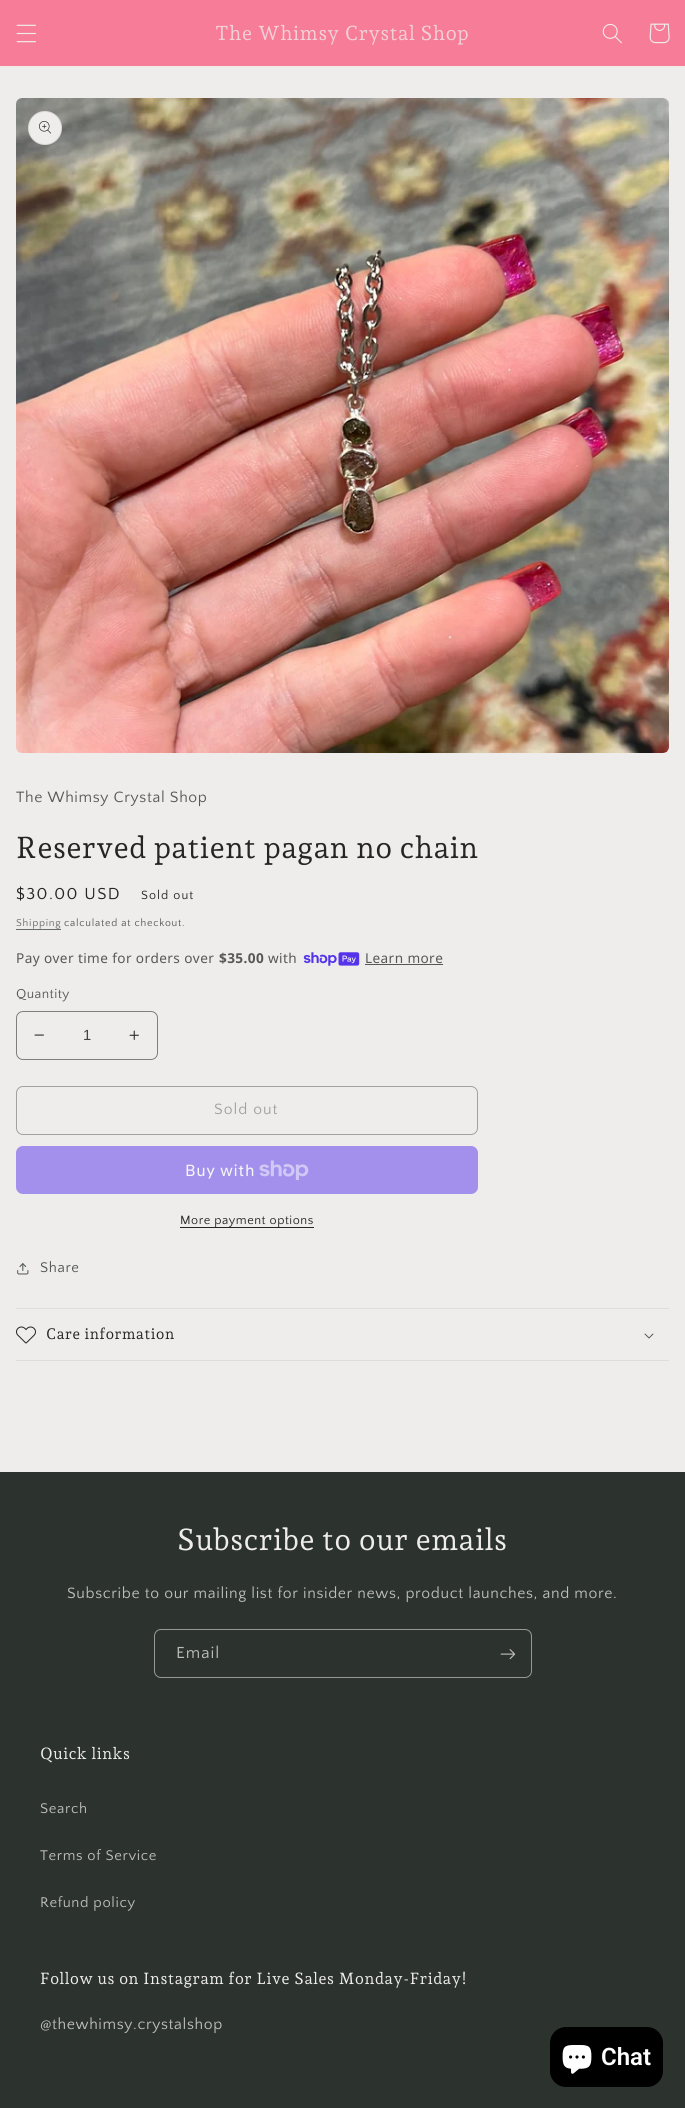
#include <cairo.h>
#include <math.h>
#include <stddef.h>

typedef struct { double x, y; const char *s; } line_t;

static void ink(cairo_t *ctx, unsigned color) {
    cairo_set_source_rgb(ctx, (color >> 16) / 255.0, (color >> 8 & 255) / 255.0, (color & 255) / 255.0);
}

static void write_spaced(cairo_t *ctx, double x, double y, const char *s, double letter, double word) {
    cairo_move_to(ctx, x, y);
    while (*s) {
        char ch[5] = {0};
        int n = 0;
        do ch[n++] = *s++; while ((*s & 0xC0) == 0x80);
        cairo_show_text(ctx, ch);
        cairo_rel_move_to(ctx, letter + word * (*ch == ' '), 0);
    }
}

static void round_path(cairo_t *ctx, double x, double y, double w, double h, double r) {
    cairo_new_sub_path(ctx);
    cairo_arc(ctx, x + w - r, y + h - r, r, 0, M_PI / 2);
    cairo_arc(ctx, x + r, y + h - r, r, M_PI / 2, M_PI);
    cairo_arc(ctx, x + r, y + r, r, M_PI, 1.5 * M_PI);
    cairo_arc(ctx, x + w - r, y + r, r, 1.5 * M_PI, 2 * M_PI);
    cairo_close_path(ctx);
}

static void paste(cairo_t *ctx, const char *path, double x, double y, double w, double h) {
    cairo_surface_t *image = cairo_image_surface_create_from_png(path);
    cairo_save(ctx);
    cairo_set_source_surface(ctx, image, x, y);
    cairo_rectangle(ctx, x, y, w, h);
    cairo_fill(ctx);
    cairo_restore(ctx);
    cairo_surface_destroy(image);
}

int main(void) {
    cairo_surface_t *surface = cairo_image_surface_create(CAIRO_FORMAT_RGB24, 685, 2108);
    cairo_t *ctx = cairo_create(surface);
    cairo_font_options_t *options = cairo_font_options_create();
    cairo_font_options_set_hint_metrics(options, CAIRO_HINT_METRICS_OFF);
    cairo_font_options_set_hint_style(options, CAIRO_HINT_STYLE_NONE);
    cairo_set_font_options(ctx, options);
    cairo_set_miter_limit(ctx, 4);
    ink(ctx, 0xEFECEC);
    cairo_paint(ctx);
    ink(ctx, 0xF77C97);
    cairo_rectangle(ctx, 0, 0, 685, 66);
    cairo_fill(ctx);
    paste(ctx, "media/1.png", 16, 24, 20, 19);
    cairo_select_font_face(ctx, "Andada Pro", CAIRO_FONT_SLANT_NORMAL, CAIRO_FONT_WEIGHT_NORMAL);
    cairo_set_font_size(ctx, 20);
    ink(ctx, 0xF1D0D7);
    write_spaced(ctx, 215, 40, "The Whimsy Crystal Shop", 0.6, 0);
    paste(ctx, "media/2.png", 602, 23, 20, 21);
    paste(ctx, "media/3.png", 649, 23, 21, 21);
    paste(ctx, "media/4.png", 16, 98, 653, 655);
    ink(ctx, 0xEFECEC);
    cairo_arc(ctx, 45, 128, 17, 0, 2 * M_PI);
    cairo_fill(ctx);
    cairo_arc(ctx, 45, 128, 16.5, 0, 2 * M_PI);
    cairo_set_source_rgba(ctx, 0.145, 0.145, 0.145, 0.1);
    cairo_set_line_width(ctx, 1);
    cairo_stroke(ctx);
    paste(ctx, "media/5.png", 39, 121, 12, 13);
    cairo_select_font_face(ctx, "Quattrocento Sans", CAIRO_FONT_SLANT_NORMAL, CAIRO_FONT_WEIGHT_NORMAL);
    cairo_set_font_size(ctx, 15.75);
    ink(ctx, 0x585757);
    write_spaced(ctx, 16, 802, "The Whimsy Crystal Shop", 0.63, 0);
    cairo_select_font_face(ctx, "Andada Pro", CAIRO_FONT_SLANT_NORMAL, CAIRO_FONT_WEIGHT_NORMAL);
    cairo_set_font_size(ctx, 30);
    ink(ctx, 0x252525);
    write_spaced(ctx, 16, 858, "Reserved patient pagan no chain", 0.6, 0);
    cairo_select_font_face(ctx, "Quattrocento Sans", CAIRO_FONT_SLANT_NORMAL, CAIRO_FONT_WEIGHT_NORMAL);
    cairo_set_font_size(ctx, 16.75);
    write_spaced(ctx, 16, 899, "$30.00 USD", 1.4, 0);
    cairo_set_font_size(ctx, 12.6);
    write_spaced(ctx, 141, 899, "Sold out", 1, 0);
    cairo_set_font_size(ctx, 10.5);
    ink(ctx, 0x686D6C);
    write_spaced(ctx, 16, 926, "Shipping", 0.75, 0);
    cairo_rectangle(ctx, 16, 929, 45, 1);
    cairo_fill(ctx);
    ink(ctx, 0x585757);
    write_spaced(ctx, 64, 926, "calculated at checkout.", 0.75, 0);
    cairo_select_font_face(ctx, "Noto Sans", CAIRO_FONT_SLANT_NORMAL, CAIRO_FONT_WEIGHT_NORMAL);
    cairo_set_font_size(ctx, 13.6);
    write_spaced(ctx, 16, 963, "Pay over time for orders over", 0.4, 0);
    cairo_select_font_face(ctx, "Noto Sans", CAIRO_FONT_SLANT_NORMAL, CAIRO_FONT_WEIGHT_BOLD);
    write_spaced(ctx, 219, 963, "$35.00", 0.4, 0);
    cairo_select_font_face(ctx, "Noto Sans", CAIRO_FONT_SLANT_NORMAL, CAIRO_FONT_WEIGHT_NORMAL);
    write_spaced(ctx, 268, 963, "with", 0.4, 0);
    paste(ctx, "media/6.png", 303, 952, 57, 14);
    write_spaced(ctx, 365, 963, "Learn more", 0.4, 0);
    cairo_rectangle(ctx, 365, 964, 78, 1);
    cairo_fill(ctx);
    cairo_select_font_face(ctx, "Quattrocento Sans", CAIRO_FONT_SLANT_NORMAL, CAIRO_FONT_WEIGHT_NORMAL);
    write_spaced(ctx, 16, 998, "Quantity", 0.4, 0);
    paste(ctx, "media/7.png", 34, 1034, 10, 2);
    paste(ctx, "media/8.png", 129, 1030, 10, 10);
    round_path(ctx, 16.5, 1011.5, 141, 48, 6.5);
    ink(ctx, 0x807F7F);
    cairo_stroke(ctx);
    cairo_select_font_face(ctx, "Liberation Sans", CAIRO_FONT_SLANT_NORMAL, CAIRO_FONT_WEIGHT_NORMAL);
    cairo_set_font_size(ctx, 14.75);
    ink(ctx, 0x434343);
    cairo_move_to(ctx, 83, 1040);
    cairo_show_text(ctx, "1");
    round_path(ctx, 16.5, 1086.5, 461, 48, 6.5);
    ink(ctx, 0xA0A1A1);
    cairo_stroke(ctx);
    cairo_select_font_face(ctx, "Quattrocento Sans", CAIRO_FONT_SLANT_NORMAL, CAIRO_FONT_WEIGHT_NORMAL);
    cairo_set_font_size(ctx, 15.75);
    write_spaced(ctx, 214, 1114, "Sold out", 1, 0);
    ink(ctx, 0xA290EC);
    round_path(ctx, 16, 1146, 462, 48, 7);
    cairo_fill(ctx);
    cairo_select_font_face(ctx, "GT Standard", CAIRO_FONT_SLANT_NORMAL, CAIRO_FONT_WEIGHT_NORMAL);
    cairo_set_font_size(ctx, 16);
    ink(ctx, 0xF7F6F6);
    write_spaced(ctx, 185, 1176, "Buy with", 0.63, 0);
    paste(ctx, "media/9.png", 259, 1160, 50, 20);
    ink(ctx, 0x252525);
    cairo_rectangle(ctx, 180, 1227, 134, 1);
    cairo_fill(ctx);
    cairo_select_font_face(ctx, "Quattrocento Sans", CAIRO_FONT_SLANT_NORMAL, CAIRO_FONT_WEIGHT_NORMAL);
    cairo_set_font_size(ctx, 12.6);
    write_spaced(ctx, 180, 1224, "More payment options", 0.5, 0);
    paste(ctx, "media/10.png", 17, 1263, 12, 12);
    cairo_set_font_size(ctx, 14.75);
    ink(ctx, 0x505655);
    write_spaced(ctx, 40, 1272, "Share", 0.63, 0);
    ink(ctx, 0xDFDCDC);
    cairo_rectangle(ctx, 16, 1308, 653, 1);
    cairo_fill(ctx);
    cairo_rectangle(ctx, 16, 1360, 653, 1);
    cairo_fill(ctx);
    paste(ctx, "media/11.png", 16, 1326, 20, 18);
    cairo_select_font_face(ctx, "Andada Pro", CAIRO_FONT_SLANT_NORMAL, CAIRO_FONT_WEIGHT_NORMAL);
    cairo_set_font_size(ctx, 15);
    ink(ctx, 0x252525);
    write_spaced(ctx, 46, 1339, "Care information", 0.6, 0);
    paste(ctx, "media/12.png", 644, 1333, 10, 6);
    ink(ctx, 0x2C332F);
    cairo_rectangle(ctx, 0, 1472, 685, 636);
    cairo_fill(ctx);
    cairo_set_font_size(ctx, 30);
    ink(ctx, 0xEFECEC);
    write_spaced(ctx, 177, 1550, "Subscribe to our emails", 0.6, 0);
    cairo_select_font_face(ctx, "Quattrocento Sans", CAIRO_FONT_SLANT_NORMAL, CAIRO_FONT_WEIGHT_NORMAL);
    cairo_set_font_size(ctx, 15.75);
    ink(ctx, 0xBEBEBD);
    write_spaced(ctx, 67, 1598, "Subscribe to our mailing list for insider news, product launches, and more.", 0.63, 0);
    round_path(ctx, 154.5, 1629.5, 377, 48, 6.5);
    ink(ctx, 0x979997);
    cairo_stroke(ctx);
    cairo_set_font_size(ctx, 16.75);
    ink(ctx, 0xBEBEBD);
    write_spaced(ctx, 176, 1658, "Email", 1, 0);
    paste(ctx, "media/13.png", 500, 1649, 15, 11);
    cairo_select_font_face(ctx, "Andada Pro", CAIRO_FONT_SLANT_NORMAL, CAIRO_FONT_WEIGHT_NORMAL);
    cairo_set_font_size(ctx, 16);
    ink(ctx, 0xEFECEC);
    write_spaced(ctx, 40, 1759, "Quick links", 0.6, 0);
    cairo_select_font_face(ctx, "Quattrocento Sans", CAIRO_FONT_SLANT_NORMAL, CAIRO_FONT_WEIGHT_NORMAL);
    cairo_set_font_size(ctx, 14.75);
    ink(ctx, 0xBEBEBD);
    {
        static const line_t items[] = {
            {40, 1813, "Search"},
            {40, 1860, "Terms of Service"},
            {40, 1907, "Refund policy"},
        };
        for (size_t i = 0; i < sizeof items / sizeof *items; i++) {
            write_spaced(ctx, items[i].x, items[i].y, items[i].s, 0.63, 0);
        }
    }
    cairo_select_font_face(ctx, "Andada Pro", CAIRO_FONT_SLANT_NORMAL, CAIRO_FONT_WEIGHT_NORMAL);
    cairo_set_font_size(ctx, 16);
    ink(ctx, 0xEFECEC);
    write_spaced(ctx, 40, 1984, "Follow us on Instagram for Live Sales Monday-Friday!", 0.6, 0);
    cairo_select_font_face(ctx, "Quattrocento Sans", CAIRO_FONT_SLANT_NORMAL, CAIRO_FONT_WEIGHT_NORMAL);
    cairo_set_font_size(ctx, 15.75);
    ink(ctx, 0xBEBEBD);
    write_spaced(ctx, 40, 2029, "@thewhimsy.crystalshop", 0.63, 0);
    ink(ctx, 0x000000);
    round_path(ctx, 550, 2027, 113, 60, 16);
    cairo_fill(ctx);
    paste(ctx, "media/14.png", 562, 2045, 30, 29);
    cairo_select_font_face(ctx, "Roboto SemiBold", CAIRO_FONT_SLANT_NORMAL, CAIRO_FONT_WEIGHT_NORMAL);
    cairo_set_font_size(ctx, 24);
    ink(ctx, 0xFFFFFF);
    cairo_move_to(ctx, 601, 2065);
    cairo_show_text(ctx, "Chat");
    cairo_surface_write_to_png(surface, "image.png");
    cairo_font_options_destroy(options);
    cairo_destroy(ctx);
    cairo_surface_destroy(surface);
    return 0;
}
